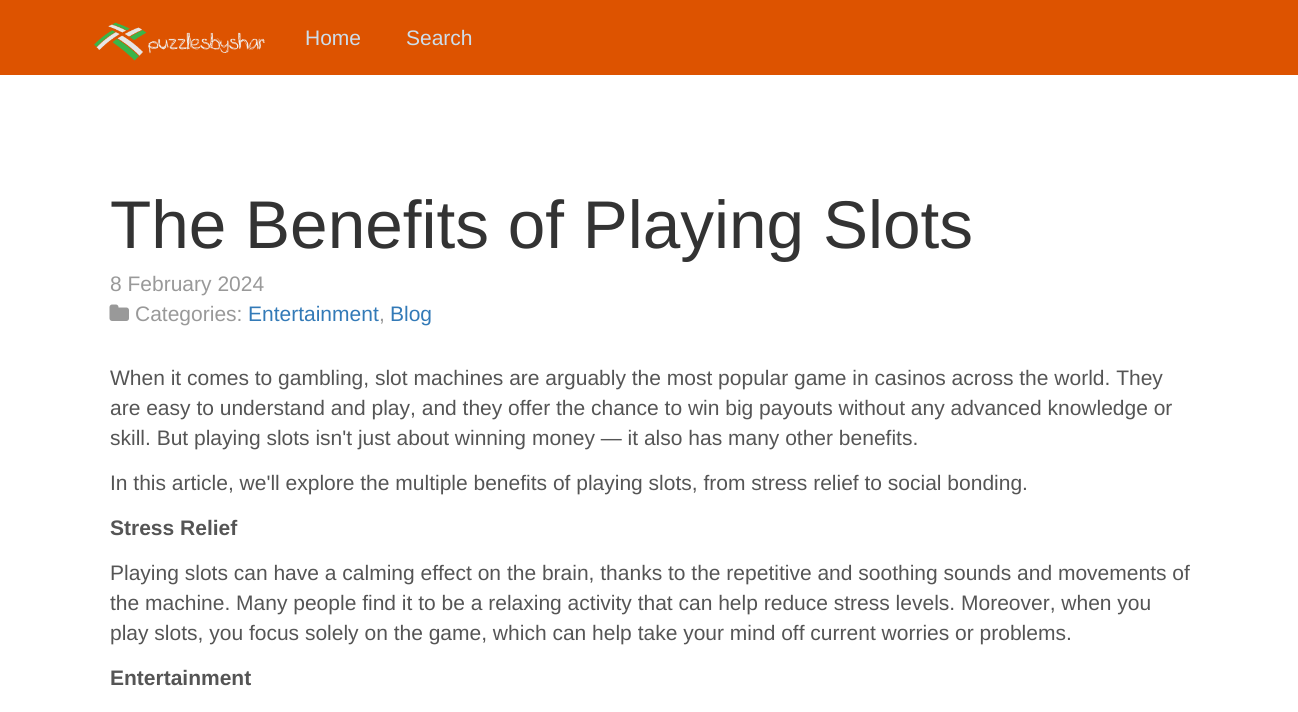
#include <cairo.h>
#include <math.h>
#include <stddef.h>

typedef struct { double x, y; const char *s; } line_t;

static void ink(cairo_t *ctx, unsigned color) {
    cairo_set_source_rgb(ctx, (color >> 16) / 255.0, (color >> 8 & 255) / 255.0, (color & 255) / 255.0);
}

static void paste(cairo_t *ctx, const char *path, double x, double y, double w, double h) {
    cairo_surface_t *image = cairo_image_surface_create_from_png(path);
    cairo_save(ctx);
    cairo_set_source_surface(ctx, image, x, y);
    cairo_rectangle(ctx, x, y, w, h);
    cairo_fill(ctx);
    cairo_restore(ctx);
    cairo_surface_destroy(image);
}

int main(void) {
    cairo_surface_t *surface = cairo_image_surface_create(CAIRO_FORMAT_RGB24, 1298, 712);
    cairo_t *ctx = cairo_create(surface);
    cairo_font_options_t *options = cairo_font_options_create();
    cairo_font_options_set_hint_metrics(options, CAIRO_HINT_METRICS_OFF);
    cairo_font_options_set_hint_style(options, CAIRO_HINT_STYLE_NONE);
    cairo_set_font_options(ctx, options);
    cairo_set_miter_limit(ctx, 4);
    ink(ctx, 0xFFFFFF);
    cairo_paint(ctx);
    ink(ctx, 0xDD5300);
    cairo_rectangle(ctx, 0, 0, 1298, 75);
    cairo_fill(ctx);
    paste(ctx, "media/1.png", 94, 22, 171, 39);
    cairo_select_font_face(ctx, "Liberation Sans", CAIRO_FONT_SLANT_NORMAL, CAIRO_FONT_WEIGHT_NORMAL);
    cairo_set_font_size(ctx, 21);
    ink(ctx, 0xCDDDEB);
    cairo_move_to(ctx, 305, 45);
    cairo_show_text(ctx, "Home");
    cairo_move_to(ctx, 406, 45);
    cairo_show_text(ctx, "Search");
    cairo_set_font_size(ctx, 67.5);
    ink(ctx, 0x333333);
    cairo_move_to(ctx, 110, 248);
    cairo_show_text(ctx, "The Benefits of Playing Slots");
    cairo_set_font_size(ctx, 21);
    ink(ctx, 0x999999);
    cairo_move_to(ctx, 110, 291);
    cairo_show_text(ctx, "8 February 2024");
    paste(ctx, "media/2.png", 109, 304, 20, 17);
    cairo_move_to(ctx, 135, 321);
    cairo_show_text(ctx, "Categories:");
    ink(ctx, 0x337AB7);
    cairo_move_to(ctx, 248, 321);
    cairo_show_text(ctx, "Entertainment");
    ink(ctx, 0x999999);
    cairo_move_to(ctx, 379, 321);
    cairo_show_text(ctx, ",");
    ink(ctx, 0x337AB7);
    cairo_move_to(ctx, 390, 321);
    cairo_show_text(ctx, "Blog");
    ink(ctx, 0x555555);
    {
        static const line_t items[] = {
            {110, 385, "When it comes to gambling, slot machines are arguably the most popular game in casinos across the world. They"},
            {110, 415, "are easy to understand and play, and they offer the chance to win big payouts without any advanced knowledge or"},
            {110, 445, "skill. But playing slots isn't just about winning money — it also has many other benefits."},
            {110, 490, "In this article, we'll explore the multiple benefits of playing slots, from stress relief to social bonding."},
        };
        for (size_t i = 0; i < sizeof items / sizeof *items; i++) {
            cairo_move_to(ctx, items[i].x, items[i].y);
            cairo_show_text(ctx, items[i].s);
        }
    }
    cairo_select_font_face(ctx, "Liberation Sans", CAIRO_FONT_SLANT_NORMAL, CAIRO_FONT_WEIGHT_BOLD);
    cairo_move_to(ctx, 110, 535);
    cairo_show_text(ctx, "Stress Relief");
    cairo_select_font_face(ctx, "Liberation Sans", CAIRO_FONT_SLANT_NORMAL, CAIRO_FONT_WEIGHT_NORMAL);
    {
        static const line_t items[] = {
            {110, 580, "Playing slots can have a calming effect on the brain, thanks to the repetitive and soothing sounds and movements of"},
            {110, 610, "the machine. Many people find it to be a relaxing activity that can help reduce stress levels. Moreover, when you"},
            {110, 640, "play slots, you focus solely on the game, which can help take your mind off current worries or problems."},
        };
        for (size_t i = 0; i < sizeof items / sizeof *items; i++) {
            cairo_move_to(ctx, items[i].x, items[i].y);
            cairo_show_text(ctx, items[i].s);
        }
    }
    cairo_select_font_face(ctx, "Liberation Sans", CAIRO_FONT_SLANT_NORMAL, CAIRO_FONT_WEIGHT_BOLD);
    cairo_move_to(ctx, 110, 685);
    cairo_show_text(ctx, "Entertainment");
    cairo_surface_write_to_png(surface, "image.png");
    cairo_font_options_destroy(options);
    cairo_destroy(ctx);
    cairo_surface_destroy(surface);
    return 0;
}
